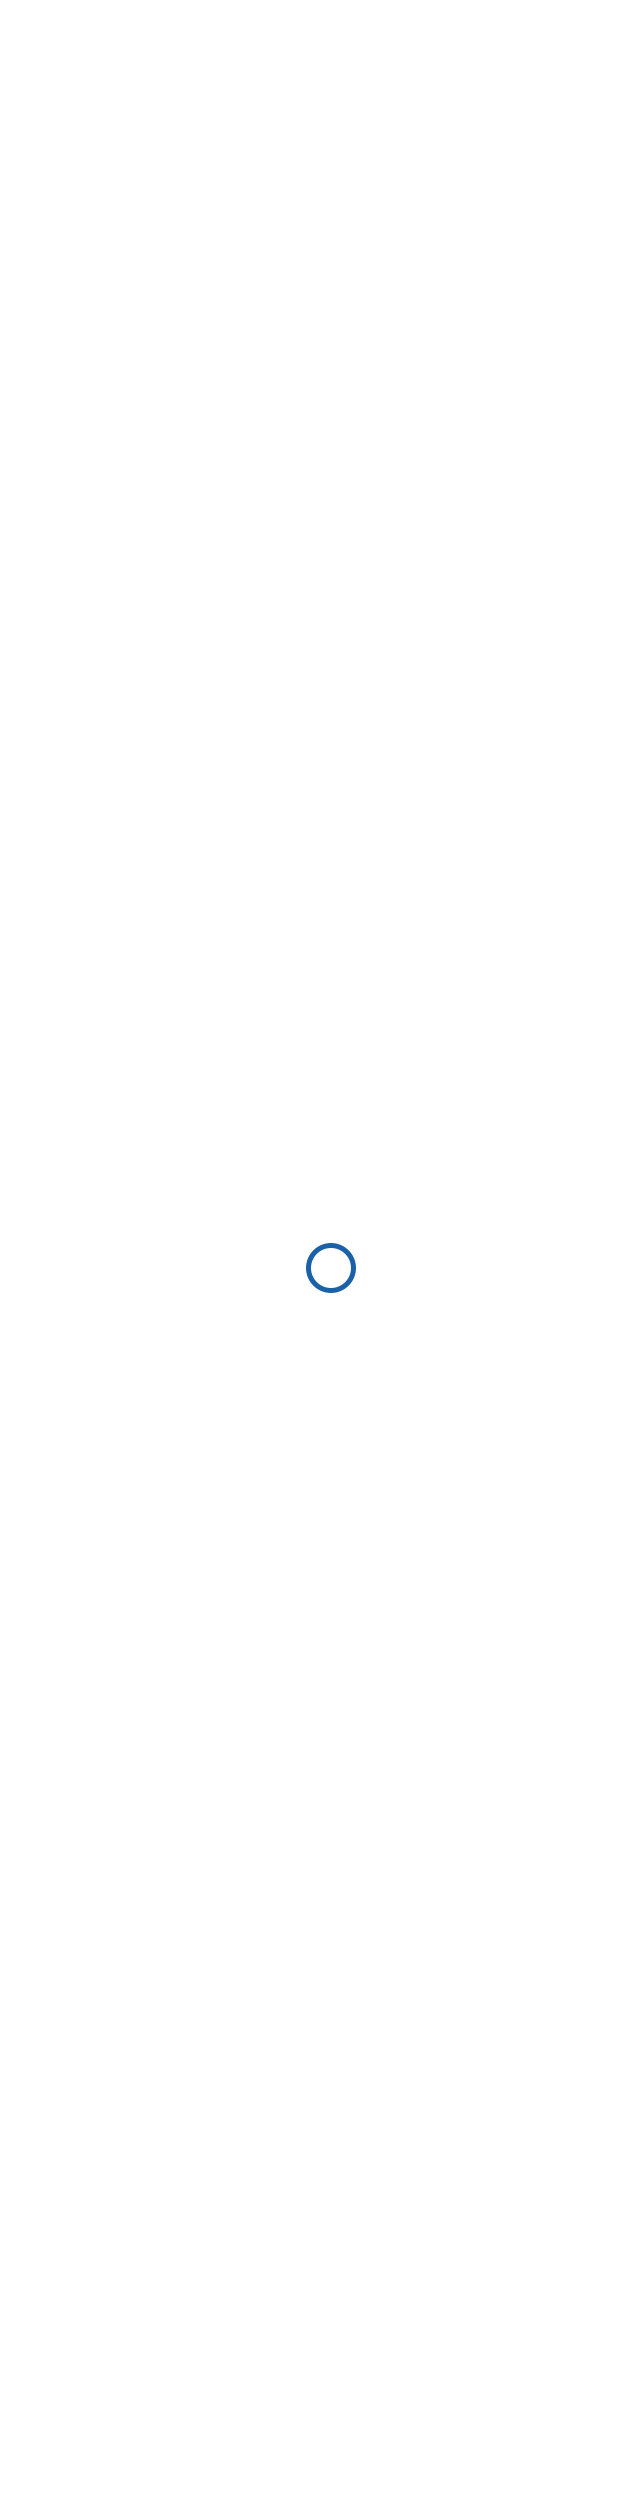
#include <cairo.h>
#include <math.h>
#include <stddef.h>


static void ink(cairo_t *ctx, unsigned color) {
    cairo_set_source_rgb(ctx, (color >> 16) / 255.0, (color >> 8 & 255) / 255.0, (color & 255) / 255.0);
}

int main(void) {
    cairo_surface_t *surface = cairo_image_surface_create(CAIRO_FORMAT_RGB24, 644, 2517);
    cairo_t *ctx = cairo_create(surface);
    cairo_font_options_t *options = cairo_font_options_create();
    cairo_font_options_set_hint_metrics(options, CAIRO_HINT_METRICS_OFF);
    cairo_font_options_set_hint_style(options, CAIRO_HINT_STYLE_NONE);
    cairo_set_font_options(ctx, options);
    cairo_set_miter_limit(ctx, 4);
    ink(ctx, 0xFFFFFF);
    cairo_paint(ctx);
    cairo_arc(ctx, 331, 1268, 22.5, 0, 2 * M_PI);
    ink(ctx, 0x1B61A7);
    cairo_set_line_width(ctx, 5);
    cairo_stroke(ctx);
    cairo_surface_write_to_png(surface, "image.png");
    cairo_font_options_destroy(options);
    cairo_destroy(ctx);
    cairo_surface_destroy(surface);
    return 0;
}
